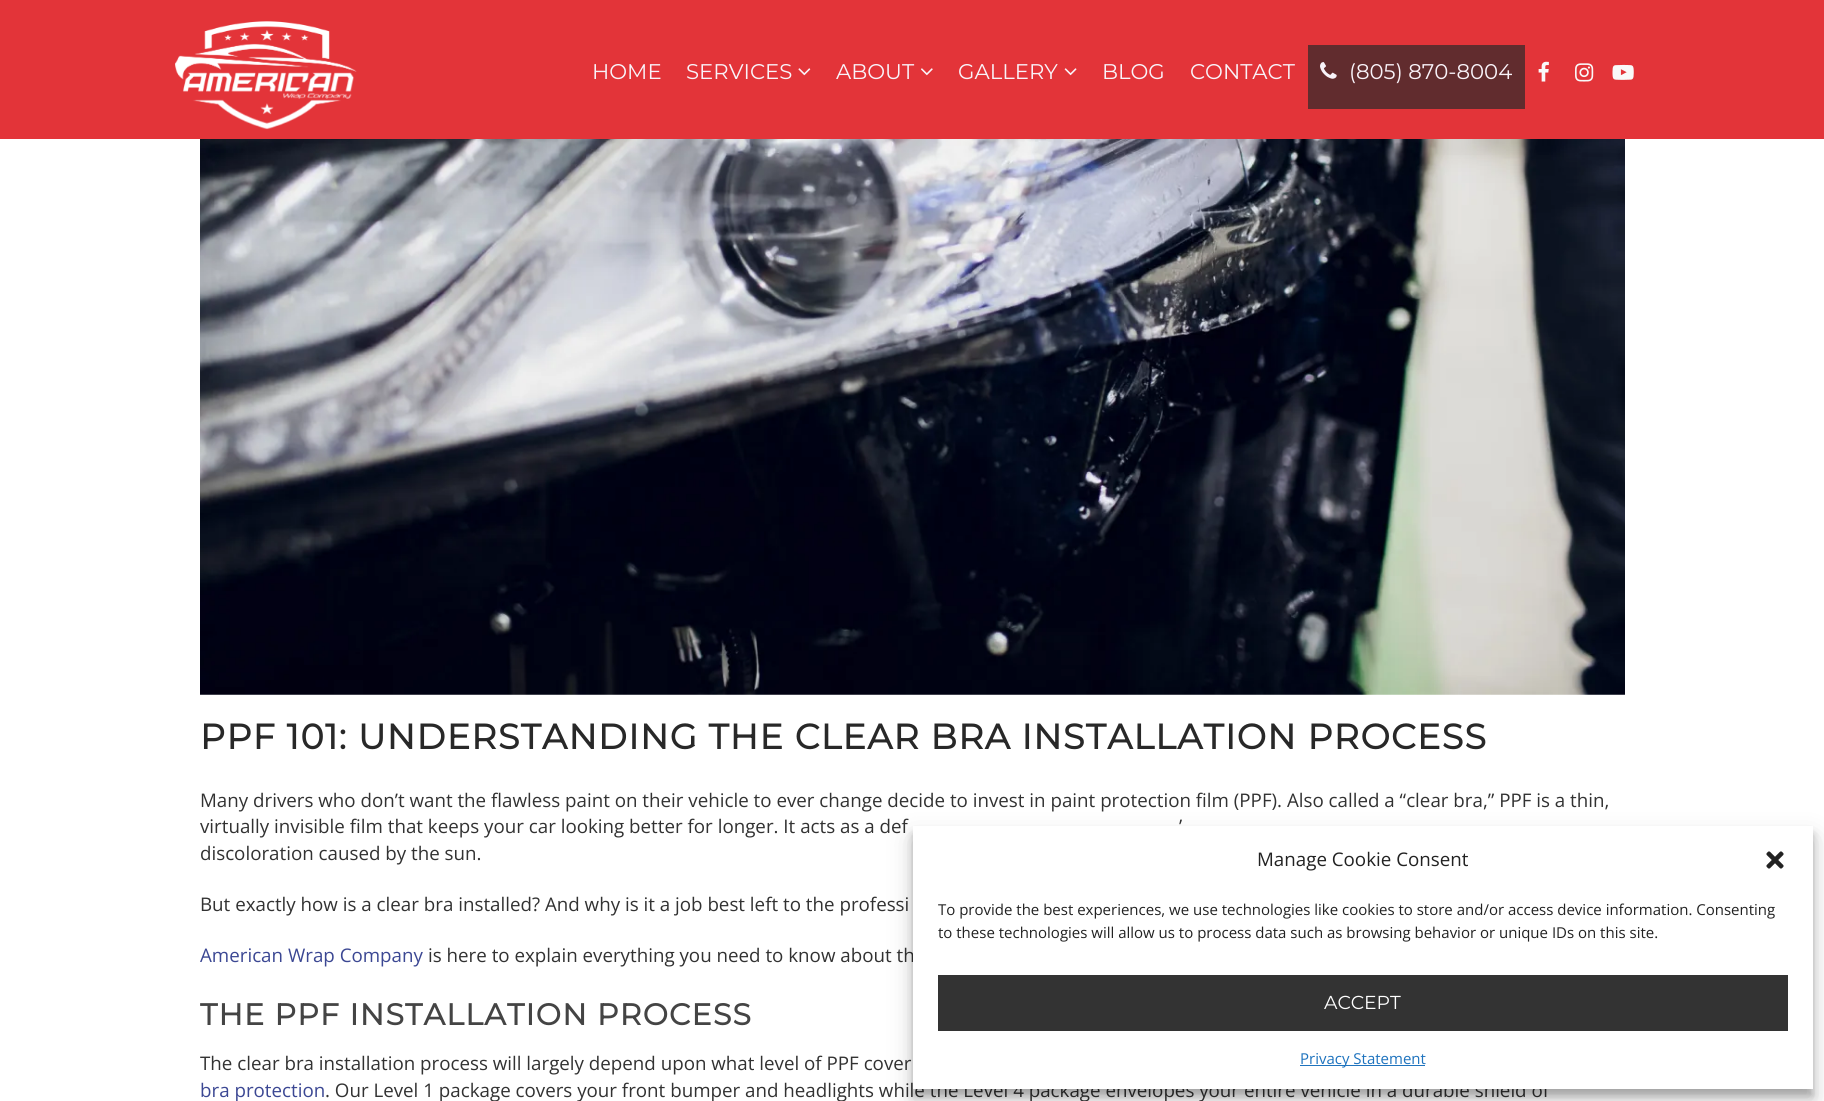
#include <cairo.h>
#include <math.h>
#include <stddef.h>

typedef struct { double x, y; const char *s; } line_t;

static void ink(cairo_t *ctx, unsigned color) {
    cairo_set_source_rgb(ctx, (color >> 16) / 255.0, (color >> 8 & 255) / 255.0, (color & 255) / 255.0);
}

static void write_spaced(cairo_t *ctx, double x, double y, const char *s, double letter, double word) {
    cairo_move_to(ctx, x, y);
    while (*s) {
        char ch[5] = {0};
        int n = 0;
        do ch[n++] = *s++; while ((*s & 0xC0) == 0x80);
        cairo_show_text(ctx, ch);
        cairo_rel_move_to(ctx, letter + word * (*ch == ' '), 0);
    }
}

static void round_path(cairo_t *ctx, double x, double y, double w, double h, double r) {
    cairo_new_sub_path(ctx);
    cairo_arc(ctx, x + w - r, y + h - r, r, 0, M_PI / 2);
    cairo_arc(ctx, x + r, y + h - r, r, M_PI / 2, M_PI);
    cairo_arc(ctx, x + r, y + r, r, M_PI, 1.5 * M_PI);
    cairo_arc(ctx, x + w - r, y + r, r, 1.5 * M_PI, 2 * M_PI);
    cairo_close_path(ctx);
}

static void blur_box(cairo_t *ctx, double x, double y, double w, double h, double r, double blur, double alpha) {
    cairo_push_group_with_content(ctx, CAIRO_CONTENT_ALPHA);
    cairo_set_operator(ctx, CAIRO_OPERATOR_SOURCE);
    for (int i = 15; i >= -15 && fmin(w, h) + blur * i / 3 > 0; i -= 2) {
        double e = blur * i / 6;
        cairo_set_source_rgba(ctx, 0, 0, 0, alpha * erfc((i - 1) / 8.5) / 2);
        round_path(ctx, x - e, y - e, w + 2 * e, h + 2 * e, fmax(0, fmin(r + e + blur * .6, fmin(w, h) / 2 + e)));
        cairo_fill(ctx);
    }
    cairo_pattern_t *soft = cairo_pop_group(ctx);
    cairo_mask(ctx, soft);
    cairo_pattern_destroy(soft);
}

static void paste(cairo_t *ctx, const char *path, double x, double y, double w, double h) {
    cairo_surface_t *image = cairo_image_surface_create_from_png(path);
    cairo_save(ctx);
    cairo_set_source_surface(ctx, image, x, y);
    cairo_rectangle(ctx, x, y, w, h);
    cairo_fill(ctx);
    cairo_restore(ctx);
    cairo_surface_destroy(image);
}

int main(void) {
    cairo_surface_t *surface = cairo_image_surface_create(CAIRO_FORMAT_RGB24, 1824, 1101);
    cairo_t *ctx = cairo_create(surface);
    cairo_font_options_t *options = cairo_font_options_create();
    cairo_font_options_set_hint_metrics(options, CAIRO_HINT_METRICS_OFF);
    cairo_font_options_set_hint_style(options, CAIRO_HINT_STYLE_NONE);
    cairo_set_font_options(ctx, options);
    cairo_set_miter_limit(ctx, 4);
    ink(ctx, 0xFFFFFF);
    cairo_paint(ctx);
    ink(ctx, 0xE33439);
    cairo_rectangle(ctx, 0, 0, 1824, 139);
    cairo_fill(ctx);
    paste(ctx, "media/1.png", 175, 21, 182, 109);
    cairo_select_font_face(ctx, "Montserrat Thin", CAIRO_FONT_SLANT_NORMAL, CAIRO_FONT_WEIGHT_NORMAL);
    cairo_set_font_size(ctx, 21.25);
    ink(ctx, 0xF9F3F9);
    cairo_move_to(ctx, 592, 79);
    cairo_show_text(ctx, "HOME");
    cairo_move_to(ctx, 686, 79);
    cairo_show_text(ctx, "SERVICES");
    paste(ctx, "media/2.png", 798, 68, 13, 8);
    cairo_move_to(ctx, 836, 79);
    cairo_show_text(ctx, "ABOUT");
    paste(ctx, "media/3.png", 921, 68, 12, 8);
    cairo_move_to(ctx, 958, 79);
    cairo_show_text(ctx, "GALLERY");
    paste(ctx, "media/4.png", 1064, 68, 13, 8);
    cairo_move_to(ctx, 1102, 79);
    cairo_show_text(ctx, "BLOG");
    cairo_move_to(ctx, 1190, 79);
    cairo_show_text(ctx, "CONTACT");
    ink(ctx, 0x612C2E);
    cairo_rectangle(ctx, 1308, 45, 217, 64);
    cairo_fill(ctx);
    paste(ctx, "media/5.png", 1320, 62, 17, 17);
    ink(ctx, 0xF9F3F9);
    cairo_move_to(ctx, 1349, 79);
    cairo_show_text(ctx, "(805) 870-8004");
    paste(ctx, "media/6.png", 1538, 61, 11, 21);
    paste(ctx, "media/7.png", 1575, 63, 19, 19);
    paste(ctx, "media/8.png", 1612, 64, 22, 16);
    paste(ctx, "media/9.png", 200, 139, 1425, 556);
    cairo_select_font_face(ctx, "Montserrat", CAIRO_FONT_SLANT_NORMAL, CAIRO_FONT_WEIGHT_BOLD);
    cairo_set_font_size(ctx, 35);
    ink(ctx, 0x282828);
    write_spaced(ctx, 200, 749, "PPF 101: UNDERSTANDING THE CLEAR BRA INSTALLATION PROCESS", 1.25, 0);
    cairo_select_font_face(ctx, "Open Sans", CAIRO_FONT_SLANT_NORMAL, CAIRO_FONT_WEIGHT_NORMAL);
    cairo_set_font_size(ctx, 18.75);
    ink(ctx, 0x323232);
    {
        static const line_t items[] = {
            {200, 807, "Many drivers who don’t want the flawless paint on their vehicle to ever change decide to invest in paint protection film (PPF). Also called a “clear bra,” PPF is a thin,"},
            {200, 833, "virtually invisible film that keeps your car looking better for longer. It acts as a def"},
            {1179, 833, "’"},
            {200, 860, "discoloration caused by the sun."},
            {200, 911, "But exactly how is a clear bra installed? And why is it a job best left to the professi"},
        };
        for (size_t i = 0; i < sizeof items / sizeof *items; i++) {
            cairo_move_to(ctx, items[i].x, items[i].y);
            cairo_show_text(ctx, items[i].s);
        }
    }
    ink(ctx, 0x3B4793);
    cairo_move_to(ctx, 200, 962);
    cairo_show_text(ctx, "American Wrap Company");
    ink(ctx, 0x323232);
    cairo_move_to(ctx, 428, 962);
    cairo_show_text(ctx, "is here to explain everything you need to know about th");
    cairo_select_font_face(ctx, "Montserrat", CAIRO_FONT_SLANT_NORMAL, CAIRO_FONT_WEIGHT_BOLD);
    cairo_set_font_size(ctx, 30);
    ink(ctx, 0x444444);
    write_spaced(ctx, 200, 1025, "THE PPF INSTALLATION PROCESS", 1.25, 0);
    cairo_select_font_face(ctx, "Open Sans", CAIRO_FONT_SLANT_NORMAL, CAIRO_FONT_WEIGHT_NORMAL);
    cairo_set_font_size(ctx, 18.75);
    ink(ctx, 0x323232);
    cairo_move_to(ctx, 200, 1070);
    cairo_show_text(ctx, "The clear bra installation process will largely depend upon what level of PPF cover");
    ink(ctx, 0x3B4793);
    cairo_move_to(ctx, 200, 1097);
    cairo_show_text(ctx, "bra protection");
    ink(ctx, 0x323232);
    cairo_move_to(ctx, 325, 1097);
    cairo_show_text(ctx, ". Our Level 1 package covers your front bumper and headlights while the Level 4 package envelopes your entire vehicle in a durable shield of");
    ink(ctx, 0x000000);
    blur_box(ctx, 913, 834, 900, 262, 0, 4, 0.23);
    blur_box(ctx, 913, 839, 900, 262, 0, 12.5, 0.19);
    ink(ctx, 0xFFFFFF);
    cairo_rectangle(ctx, 913, 826, 900, 263);
    cairo_fill(ctx);
    ink(ctx, 0x222222);
    cairo_move_to(ctx, 1257, 866);
    cairo_show_text(ctx, "Manage Cookie Consent");
    paste(ctx, "media/10.png", 1766, 851, 18, 18);
    cairo_set_font_size(ctx, 15);
    cairo_move_to(ctx, 938, 915);
    cairo_show_text(ctx, "To provide the best experiences, we use technologies like cookies to store and/or access device information. Consenting");
    cairo_move_to(ctx, 938, 938);
    cairo_show_text(ctx, "to these technologies will allow us to process data such as browsing behavior or unique IDs on this site.");
    ink(ctx, 0x333333);
    cairo_rectangle(ctx, 938, 975, 850, 56);
    cairo_fill(ctx);
    cairo_select_font_face(ctx, "Montserrat Thin", CAIRO_FONT_SLANT_NORMAL, CAIRO_FONT_WEIGHT_NORMAL);
    cairo_set_font_size(ctx, 18.75);
    ink(ctx, 0xFFFFFF);
    cairo_move_to(ctx, 1324, 1009);
    cairo_show_text(ctx, "ACCEPT");
    ink(ctx, 0x1E73BE);
    cairo_rectangle(ctx, 1300, 1065, 125, 1);
    cairo_fill(ctx);
    cairo_select_font_face(ctx, "Open Sans", CAIRO_FONT_SLANT_NORMAL, CAIRO_FONT_WEIGHT_NORMAL);
    cairo_set_font_size(ctx, 15);
    cairo_move_to(ctx, 1300, 1064);
    cairo_show_text(ctx, "Privacy Statement");
    cairo_surface_write_to_png(surface, "image.png");
    cairo_font_options_destroy(options);
    cairo_destroy(ctx);
    cairo_surface_destroy(surface);
    return 0;
}
